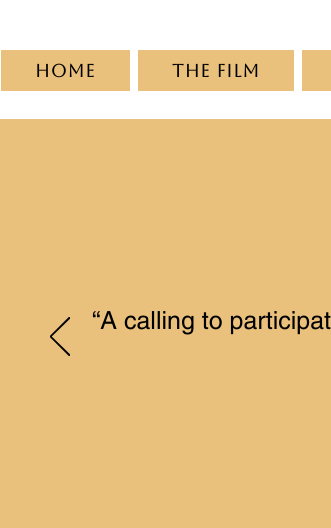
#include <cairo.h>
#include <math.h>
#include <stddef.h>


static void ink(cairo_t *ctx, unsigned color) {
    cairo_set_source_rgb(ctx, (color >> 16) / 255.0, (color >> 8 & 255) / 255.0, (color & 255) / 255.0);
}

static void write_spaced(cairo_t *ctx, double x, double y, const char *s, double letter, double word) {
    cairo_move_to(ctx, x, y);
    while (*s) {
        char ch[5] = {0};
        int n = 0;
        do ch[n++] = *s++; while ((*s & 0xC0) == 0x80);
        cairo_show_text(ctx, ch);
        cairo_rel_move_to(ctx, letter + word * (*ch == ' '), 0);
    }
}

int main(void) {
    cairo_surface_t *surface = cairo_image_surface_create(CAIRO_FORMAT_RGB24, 331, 528);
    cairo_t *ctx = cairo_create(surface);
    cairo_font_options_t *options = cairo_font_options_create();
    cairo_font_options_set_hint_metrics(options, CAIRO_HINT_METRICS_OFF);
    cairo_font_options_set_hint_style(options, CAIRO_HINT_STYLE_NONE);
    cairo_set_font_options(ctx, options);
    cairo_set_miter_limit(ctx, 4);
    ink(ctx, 0xFFFFFF);
    cairo_paint(ctx);
    ink(ctx, 0xEAC07D);
    cairo_rectangle(ctx, 1, 50, 129, 41);
    cairo_fill(ctx);
    cairo_select_font_face(ctx, "Aboreto", CAIRO_FONT_SLANT_NORMAL, CAIRO_FONT_WEIGHT_BOLD);
    cairo_set_font_size(ctx, 18);
    ink(ctx, 0x000000);
    write_spaced(ctx, 35, 77, "Home", 1, 0);
    ink(ctx, 0xEAC07D);
    cairo_rectangle(ctx, 138, 50, 156, 41);
    cairo_fill(ctx);
    ink(ctx, 0x000000);
    write_spaced(ctx, 172, 77, "The Film", 1, 0);
    ink(ctx, 0xEAC07D);
    cairo_rectangle(ctx, 302, 50, 29, 41);
    cairo_fill(ctx);
    cairo_rectangle(ctx, 0, 119, 331, 409);
    cairo_fill(ctx);
    cairo_save(ctx);
    cairo_rectangle(ctx, 50, 317, 20, 39);
    cairo_clip(ctx);
    cairo_new_path(ctx);
    cairo_move_to(ctx, 69.5, 356);
    cairo_line_to(ctx, 50, 336.5);
    cairo_line_to(ctx, 69.5, 317);
    cairo_line_to(ctx, 70, 318);
    cairo_line_to(ctx, 51, 336.5);
    cairo_line_to(ctx, 70, 355);
    cairo_close_path(ctx);
    ink(ctx, 0x000000);
    cairo_set_line_width(ctx, 1);
    cairo_stroke(ctx);
    cairo_restore(ctx);
    cairo_select_font_face(ctx, "helvetica", CAIRO_FONT_SLANT_NORMAL, CAIRO_FONT_WEIGHT_NORMAL);
    cairo_set_font_size(ctx, 25);
    ink(ctx, 0x000000);
    cairo_move_to(ctx, 92, 329);
    cairo_show_text(ctx, "“A calling to participat");
    cairo_surface_write_to_png(surface, "image.png");
    cairo_font_options_destroy(options);
    cairo_destroy(ctx);
    cairo_surface_destroy(surface);
    return 0;
}
